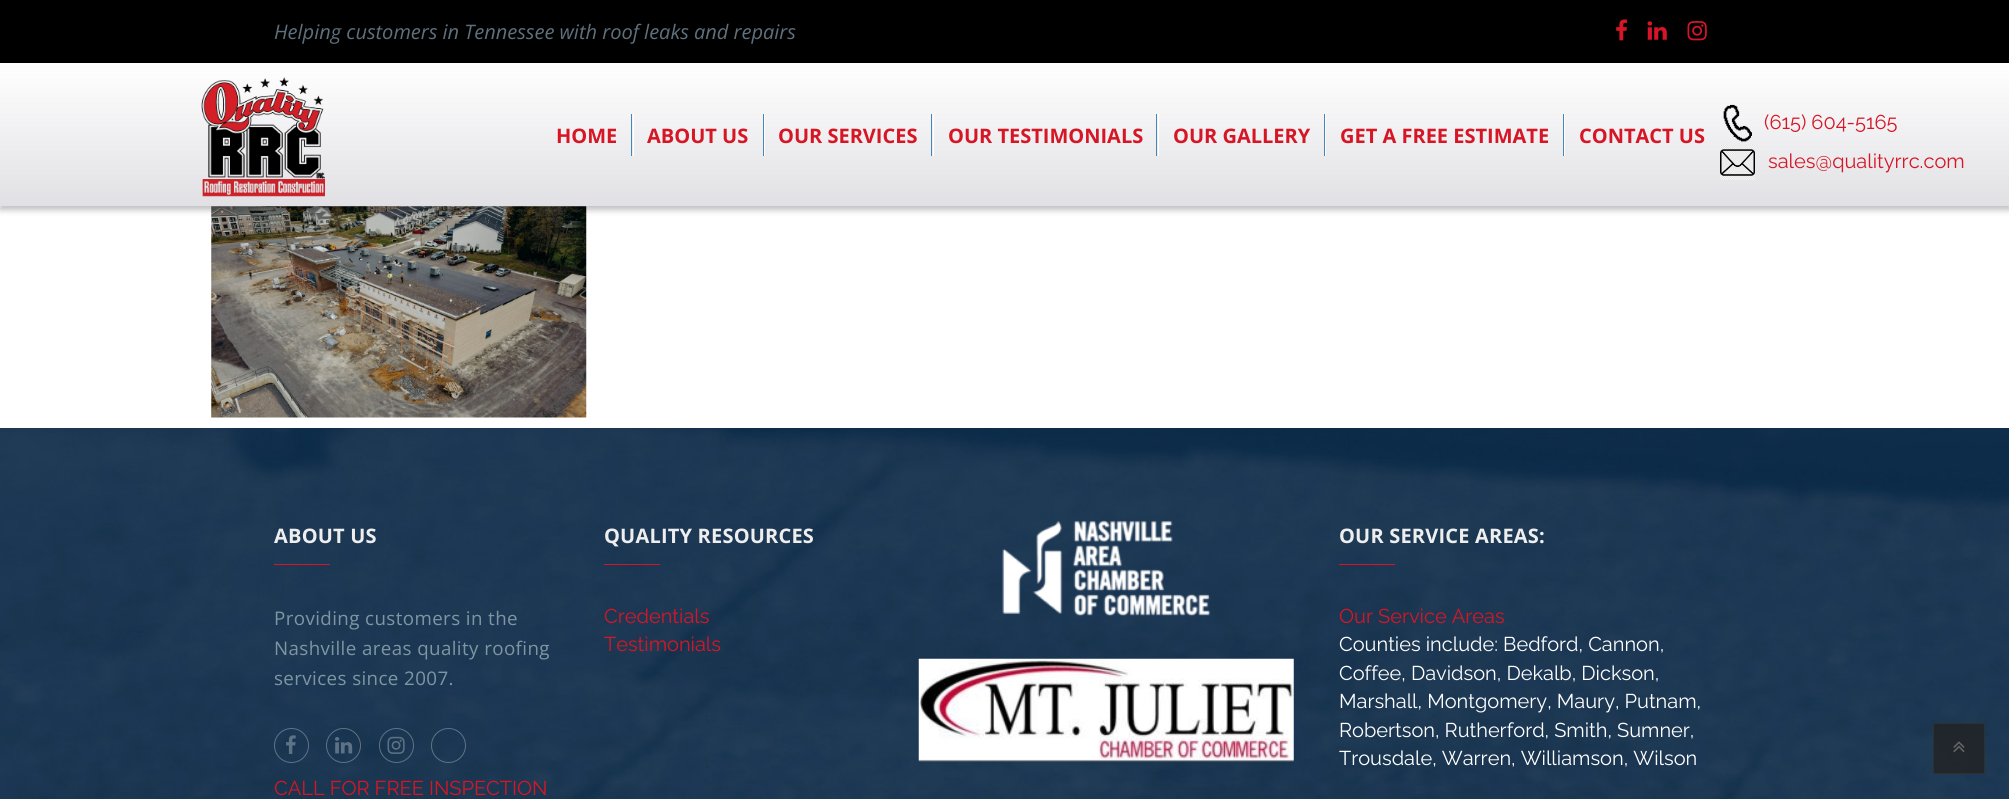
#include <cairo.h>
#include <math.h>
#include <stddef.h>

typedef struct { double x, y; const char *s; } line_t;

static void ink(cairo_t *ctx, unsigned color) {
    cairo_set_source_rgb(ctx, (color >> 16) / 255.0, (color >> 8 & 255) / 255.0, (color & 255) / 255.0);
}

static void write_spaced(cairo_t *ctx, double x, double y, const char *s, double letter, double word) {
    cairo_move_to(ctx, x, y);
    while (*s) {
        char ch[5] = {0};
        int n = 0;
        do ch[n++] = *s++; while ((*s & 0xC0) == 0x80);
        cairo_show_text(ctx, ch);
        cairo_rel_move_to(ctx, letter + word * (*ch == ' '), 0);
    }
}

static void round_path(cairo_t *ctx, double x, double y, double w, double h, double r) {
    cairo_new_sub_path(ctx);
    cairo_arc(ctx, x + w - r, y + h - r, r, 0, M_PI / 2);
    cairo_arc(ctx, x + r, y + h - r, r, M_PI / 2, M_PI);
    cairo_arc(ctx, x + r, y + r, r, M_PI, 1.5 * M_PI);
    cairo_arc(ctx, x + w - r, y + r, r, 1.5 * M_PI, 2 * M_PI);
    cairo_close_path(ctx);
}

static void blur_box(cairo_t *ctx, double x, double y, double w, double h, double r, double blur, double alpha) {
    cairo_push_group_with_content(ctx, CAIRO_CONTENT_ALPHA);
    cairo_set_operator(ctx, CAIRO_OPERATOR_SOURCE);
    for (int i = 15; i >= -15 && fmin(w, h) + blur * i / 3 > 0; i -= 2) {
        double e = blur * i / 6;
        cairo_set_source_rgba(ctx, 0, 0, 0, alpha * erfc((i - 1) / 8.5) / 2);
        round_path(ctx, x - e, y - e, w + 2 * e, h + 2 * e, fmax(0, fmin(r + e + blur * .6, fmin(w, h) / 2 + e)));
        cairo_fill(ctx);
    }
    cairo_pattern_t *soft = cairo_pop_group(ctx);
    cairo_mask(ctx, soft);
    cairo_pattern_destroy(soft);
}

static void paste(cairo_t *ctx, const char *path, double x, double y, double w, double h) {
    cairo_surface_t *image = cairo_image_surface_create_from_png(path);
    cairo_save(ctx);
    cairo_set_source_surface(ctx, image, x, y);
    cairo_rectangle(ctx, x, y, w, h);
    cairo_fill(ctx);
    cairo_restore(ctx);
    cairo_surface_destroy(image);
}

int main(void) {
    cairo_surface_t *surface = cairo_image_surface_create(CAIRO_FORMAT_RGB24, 2009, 799);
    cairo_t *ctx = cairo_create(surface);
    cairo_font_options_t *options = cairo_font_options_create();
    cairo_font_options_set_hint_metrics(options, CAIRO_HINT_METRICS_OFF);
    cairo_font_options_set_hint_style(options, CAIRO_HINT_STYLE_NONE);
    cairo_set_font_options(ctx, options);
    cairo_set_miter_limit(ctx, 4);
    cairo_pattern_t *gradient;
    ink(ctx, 0xFFFFFF);
    cairo_paint(ctx);
    paste(ctx, "media/7.png", 211, 206, 376, 212);
    ink(ctx, 0x000000);
    blur_box(ctx, 0, 66, 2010, 144, 0, 3, 0.25);
    ink(ctx, 0x000000);
    cairo_rectangle(ctx, 0, 0, 2009, 63);
    cairo_fill(ctx);
    cairo_select_font_face(ctx, "Open Sans", CAIRO_FONT_SLANT_ITALIC, CAIRO_FONT_WEIGHT_NORMAL);
    cairo_set_font_size(ctx, 20);
    ink(ctx, 0x5F707D);
    cairo_move_to(ctx, 274, 39);
    cairo_show_text(ctx, "Helping customers in Tennessee with roof leaks and repairs");
    paste(ctx, "media/1.png", 1616, 19, 12, 22);
    paste(ctx, "media/2.png", 1647, 21, 20, 19);
    paste(ctx, "media/3.png", 1687, 21, 20, 20);
    gradient = cairo_pattern_create_linear(1005, 206, 1005, 63);
    cairo_pattern_add_color_stop_rgba(gradient, 0, 0.882, 0.878, 0.894, 1);
    cairo_pattern_add_color_stop_rgba(gradient, 1, 1, 1, 1, 1);
    cairo_set_source(ctx, gradient);
    cairo_pattern_destroy(gradient);
    cairo_rectangle(ctx, 0, 63, 2009, 143);
    cairo_fill(ctx);
    paste(ctx, "media/4.png", 201, 77, 124, 120);
    cairo_select_font_face(ctx, "Open Sans", CAIRO_FONT_SLANT_NORMAL, CAIRO_FONT_WEIGHT_BOLD);
    ink(ctx, 0xD61625);
    cairo_move_to(ctx, 556, 143);
    cairo_show_text(ctx, "HOME");
    ink(ctx, 0x4287B8);
    cairo_rectangle(ctx, 631, 114, 1, 42);
    cairo_fill(ctx);
    ink(ctx, 0xFFFFFF);
    cairo_rectangle(ctx, 633, 114, 1, 42);
    cairo_fill(ctx);
    ink(ctx, 0xD61625);
    cairo_move_to(ctx, 647, 143);
    cairo_show_text(ctx, "ABOUT US");
    ink(ctx, 0x4287B8);
    cairo_rectangle(ctx, 763, 114, 1, 42);
    cairo_fill(ctx);
    ink(ctx, 0xFFFFFF);
    cairo_rectangle(ctx, 764, 114, 1, 42);
    cairo_fill(ctx);
    ink(ctx, 0xD61625);
    cairo_move_to(ctx, 778, 143);
    cairo_show_text(ctx, "OUR SERVICES");
    ink(ctx, 0x4287B8);
    cairo_rectangle(ctx, 931, 114, 1, 42);
    cairo_fill(ctx);
    ink(ctx, 0xFFFFFF);
    cairo_rectangle(ctx, 933, 114, 1, 42);
    cairo_fill(ctx);
    ink(ctx, 0xD61625);
    cairo_move_to(ctx, 948, 143);
    cairo_show_text(ctx, "OUR TESTIMONIALS");
    ink(ctx, 0x4287B8);
    cairo_rectangle(ctx, 1156, 114, 1, 42);
    cairo_fill(ctx);
    ink(ctx, 0xFFFFFF);
    cairo_rectangle(ctx, 1158, 114, 1, 42);
    cairo_fill(ctx);
    ink(ctx, 0xD61625);
    cairo_move_to(ctx, 1173, 143);
    cairo_show_text(ctx, "OUR GALLERY");
    ink(ctx, 0x4287B8);
    cairo_rectangle(ctx, 1324, 114, 1, 42);
    cairo_fill(ctx);
    ink(ctx, 0xFFFFFF);
    cairo_rectangle(ctx, 1325, 114, 1, 42);
    cairo_fill(ctx);
    ink(ctx, 0xD61625);
    cairo_move_to(ctx, 1340, 143);
    cairo_show_text(ctx, "GET A FREE ESTIMATE");
    ink(ctx, 0x4287B8);
    cairo_rectangle(ctx, 1563, 114, 1, 42);
    cairo_fill(ctx);
    ink(ctx, 0xFFFFFF);
    cairo_rectangle(ctx, 1564, 114, 1, 42);
    cairo_fill(ctx);
    ink(ctx, 0xD61625);
    cairo_move_to(ctx, 1579, 143);
    cairo_show_text(ctx, "CONTACT US");
    paste(ctx, "media/5.png", 1723, 104, 29, 38);
    cairo_select_font_face(ctx, "Raleway", CAIRO_FONT_SLANT_NORMAL, CAIRO_FONT_WEIGHT_NORMAL);
    cairo_move_to(ctx, 1764, 129);
    cairo_show_text(ctx, "(615) 604-5165");
    paste(ctx, "media/6.png", 1720, 145, 35, 35);
    cairo_move_to(ctx, 1768, 168);
    cairo_show_text(ctx, "sales@qualityrrc.com");
    paste(ctx, "media/8.png", 0, 428, 2009, 371);
    cairo_select_font_face(ctx, "Open Sans", CAIRO_FONT_SLANT_NORMAL, CAIRO_FONT_WEIGHT_BOLD);
    ink(ctx, 0xEEEEEE);
    write_spaced(ctx, 274, 543, "ABOUT US", 0.2, 0);
    ink(ctx, 0xD61625);
    cairo_rectangle(ctx, 274, 564, 56, 1);
    cairo_fill(ctx);
    cairo_select_font_face(ctx, "Open Sans", CAIRO_FONT_SLANT_NORMAL, CAIRO_FONT_WEIGHT_NORMAL);
    cairo_set_font_size(ctx, 18.75);
    ink(ctx, 0x7E95A2);
    {
        static const line_t items[] = {
            {274, 625, "Providing customers in the"},
            {274, 655, "Nashville areas quality roofing"},
            {274, 685, "services since 2007."},
        };
        for (size_t i = 0; i < sizeof items / sizeof *items; i++) {
            write_spaced(ctx, items[i].x, items[i].y, items[i].s, 0.4, 0);
        }
    }
    cairo_new_path(ctx);
    cairo_arc(ctx, 291.5, 745.5, 17, 0, 2 * M_PI);
    ink(ctx, 0x5E7285);
    cairo_set_line_width(ctx, 1);
    cairo_stroke(ctx);
    paste(ctx, "media/9.png", 286, 735, 10, 19);
    cairo_arc(ctx, 343.5, 745.5, 17, 0, 2 * M_PI);
    cairo_stroke(ctx);
    paste(ctx, "media/10.png", 335, 737, 18, 17);
    cairo_arc(ctx, 396.5, 745.5, 17, 0, 2 * M_PI);
    cairo_stroke(ctx);
    paste(ctx, "media/11.png", 387, 736, 18, 18);
    cairo_arc(ctx, 448.5, 745.5, 17, 0, 2 * M_PI);
    cairo_stroke(ctx);
    cairo_select_font_face(ctx, "Raleway", CAIRO_FONT_SLANT_NORMAL, CAIRO_FONT_WEIGHT_NORMAL);
    cairo_set_font_size(ctx, 20);
    ink(ctx, 0xD61625);
    cairo_move_to(ctx, 274, 795);
    cairo_show_text(ctx, "CALL FOR FREE INSPECTION");
    cairo_select_font_face(ctx, "Open Sans", CAIRO_FONT_SLANT_NORMAL, CAIRO_FONT_WEIGHT_BOLD);
    ink(ctx, 0xEEEEEE);
    write_spaced(ctx, 604, 543, "QUALITY RESOURCES", 0.2, 0);
    ink(ctx, 0xD61625);
    cairo_rectangle(ctx, 604, 564, 56, 1);
    cairo_fill(ctx);
    cairo_select_font_face(ctx, "Raleway", CAIRO_FONT_SLANT_NORMAL, CAIRO_FONT_WEIGHT_NORMAL);
    cairo_move_to(ctx, 604, 623);
    cairo_show_text(ctx, "Credentials");
    cairo_move_to(ctx, 604, 651);
    cairo_show_text(ctx, "Testimonials");
    paste(ctx, "media/12.png", 1002, 520, 209, 97);
    paste(ctx, "media/13.png", 918, 658, 376, 104);
    cairo_select_font_face(ctx, "Open Sans", CAIRO_FONT_SLANT_NORMAL, CAIRO_FONT_WEIGHT_BOLD);
    ink(ctx, 0xEEEEEE);
    write_spaced(ctx, 1339, 543, "OUR SERVICE AREAS:", 0.2, 0);
    ink(ctx, 0xD61625);
    cairo_rectangle(ctx, 1339, 564, 56, 1);
    cairo_fill(ctx);
    cairo_select_font_face(ctx, "Raleway", CAIRO_FONT_SLANT_NORMAL, CAIRO_FONT_WEIGHT_NORMAL);
    cairo_move_to(ctx, 1339, 623);
    cairo_show_text(ctx, "Our Service Areas");
    ink(ctx, 0xFFFFFF);
    {
        static const line_t items[] = {
            {1339, 651, "Counties include: Bedford, Cannon,"},
            {1339, 680, "Coffee, Davidson, Dekalb, Dickson,"},
            {1339, 708, "Marshall, Montgomery, Maury, Putnam,"},
            {1339, 737, "Robertson, Rutherford, Smith, Sumner,"},
            {1339, 765, "Trousdale, Warren, Williamson, Wilson"},
        };
        for (size_t i = 0; i < sizeof items / sizeof *items; i++) {
            cairo_move_to(ctx, items[i].x, items[i].y);
            cairo_show_text(ctx, items[i].s);
        }
    }
    cairo_set_source_rgba(ctx, 0.133, 0.133, 0.133, 0.8);
    round_path(ctx, 1933, 723, 52, 51, 2.5);
    cairo_fill(ctx);
    round_path(ctx, 1933.5, 723.5, 51, 50, 2);
    cairo_set_source_rgba(ctx, 0.2, 0.2, 0.2, 0.8);
    cairo_stroke(ctx);
    paste(ctx, "media/14.png", 1953, 741, 12, 12);
    cairo_surface_write_to_png(surface, "image.png");
    cairo_font_options_destroy(options);
    cairo_destroy(ctx);
    cairo_surface_destroy(surface);
    return 0;
}
